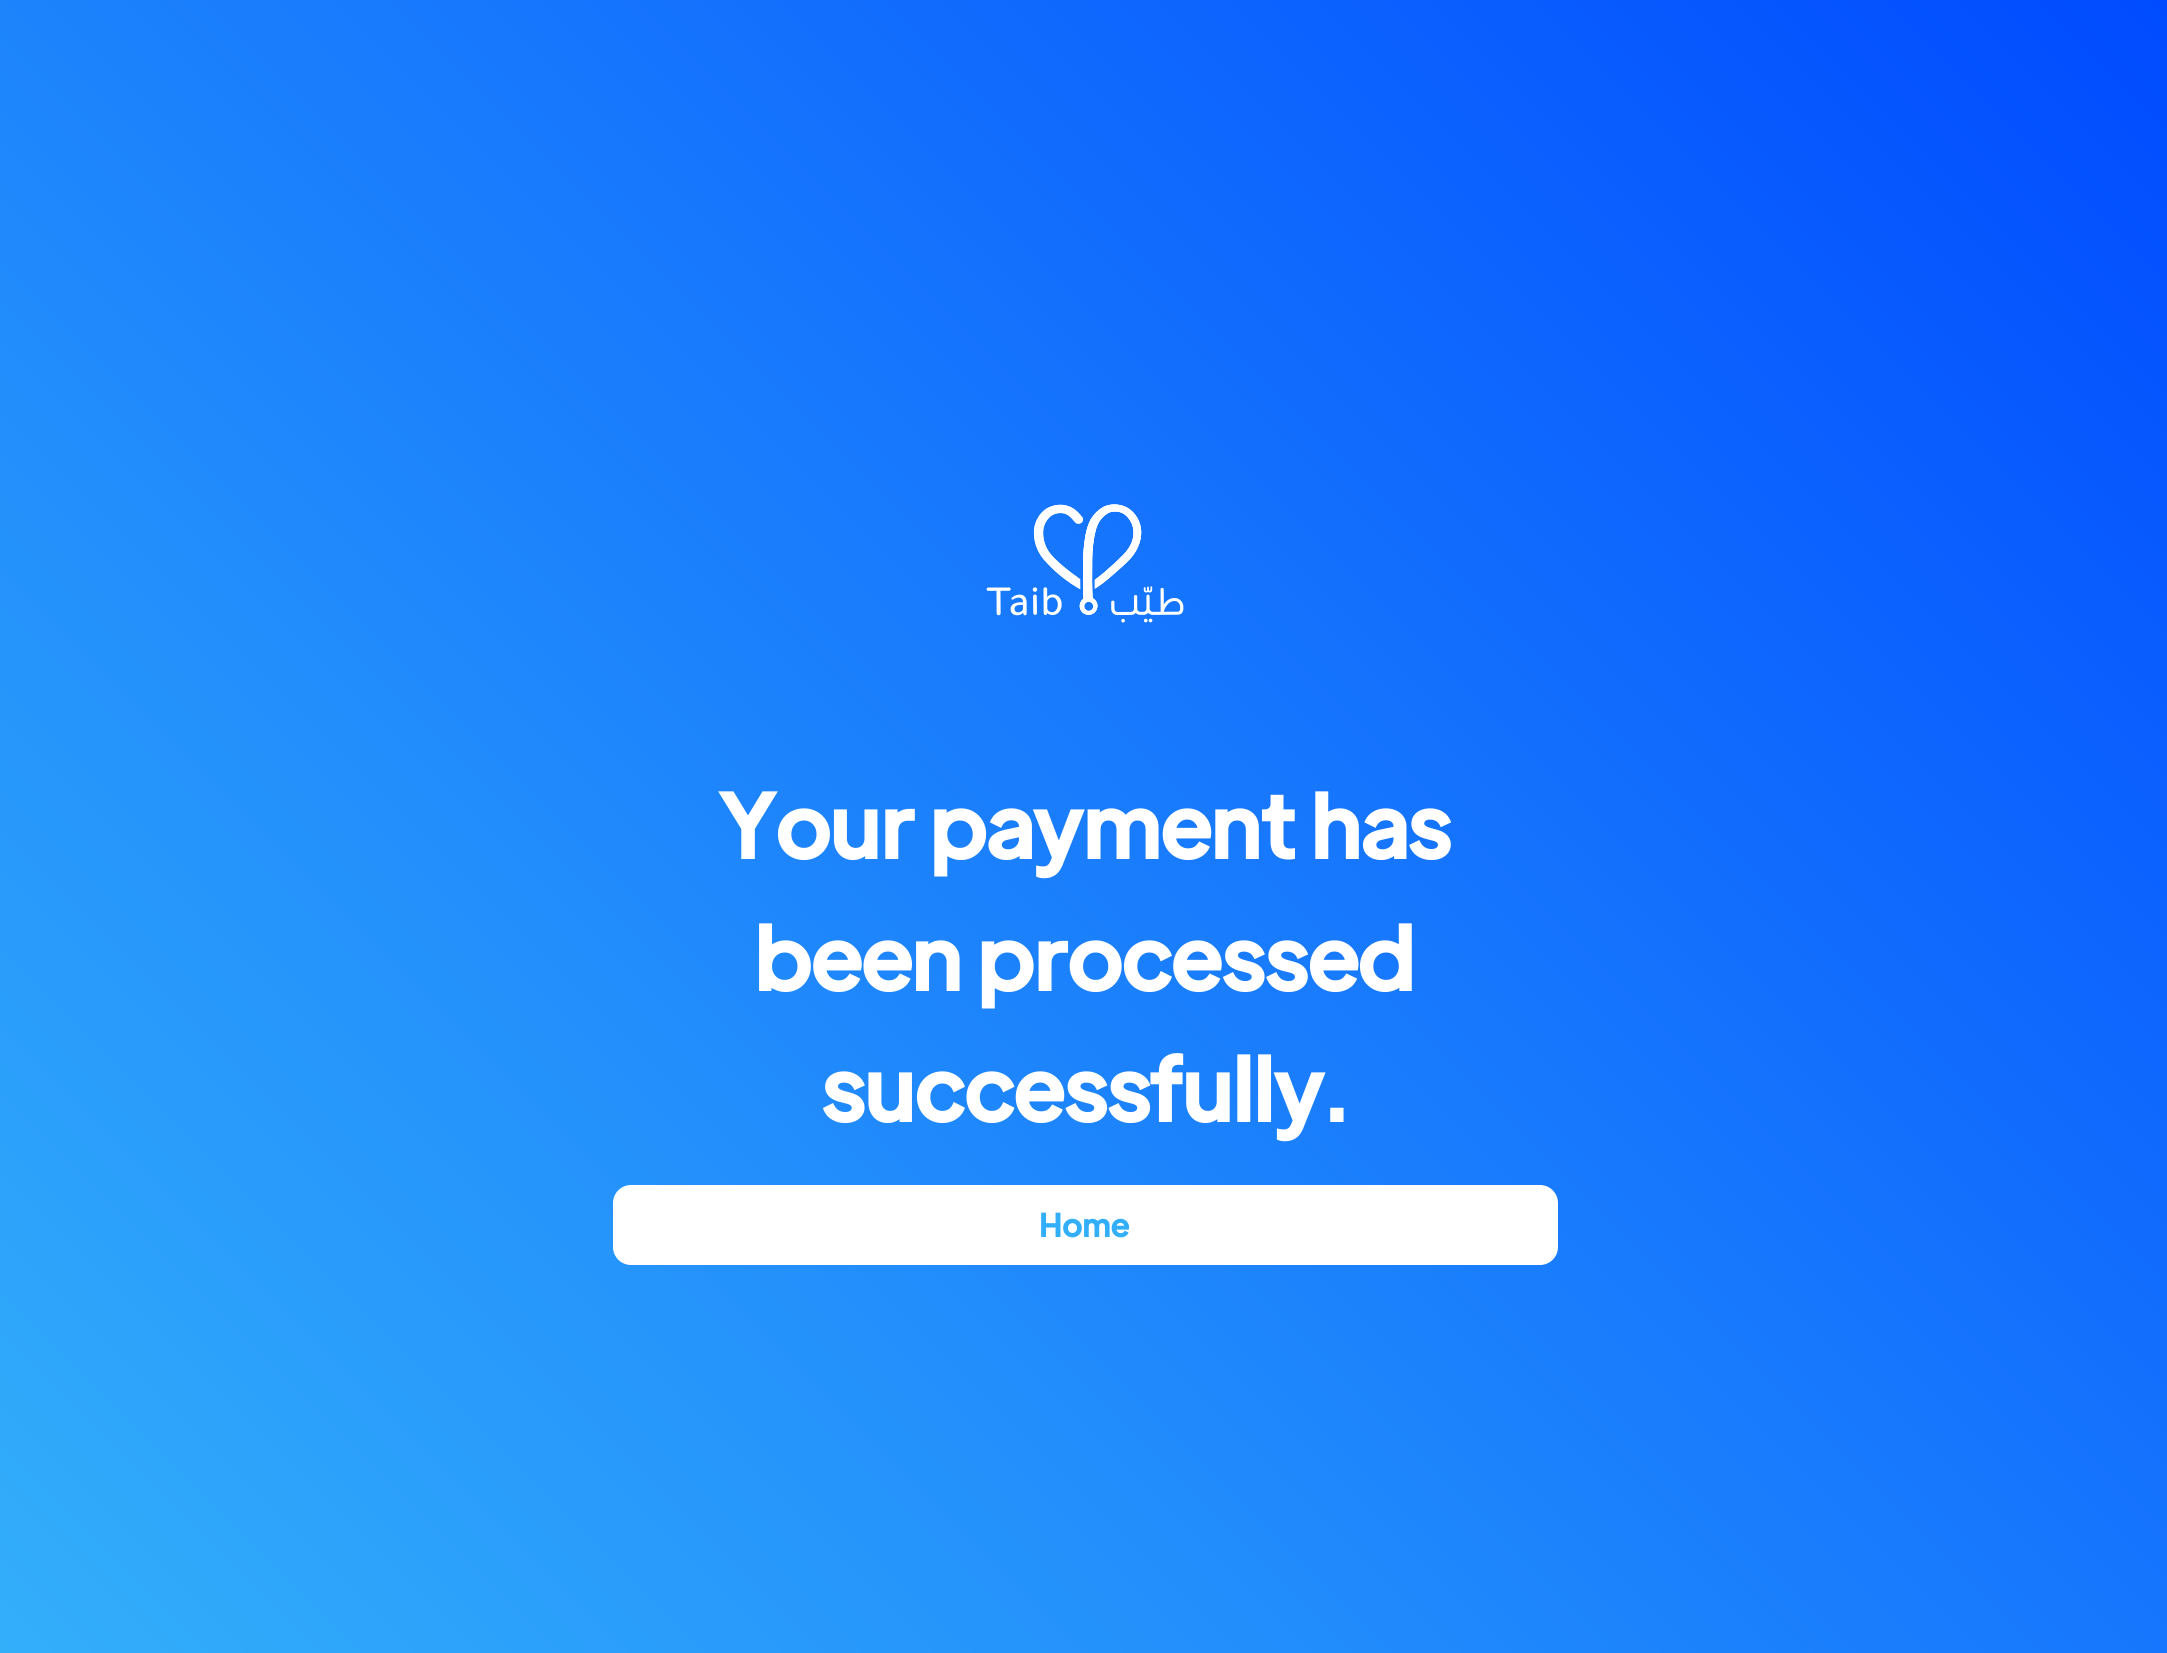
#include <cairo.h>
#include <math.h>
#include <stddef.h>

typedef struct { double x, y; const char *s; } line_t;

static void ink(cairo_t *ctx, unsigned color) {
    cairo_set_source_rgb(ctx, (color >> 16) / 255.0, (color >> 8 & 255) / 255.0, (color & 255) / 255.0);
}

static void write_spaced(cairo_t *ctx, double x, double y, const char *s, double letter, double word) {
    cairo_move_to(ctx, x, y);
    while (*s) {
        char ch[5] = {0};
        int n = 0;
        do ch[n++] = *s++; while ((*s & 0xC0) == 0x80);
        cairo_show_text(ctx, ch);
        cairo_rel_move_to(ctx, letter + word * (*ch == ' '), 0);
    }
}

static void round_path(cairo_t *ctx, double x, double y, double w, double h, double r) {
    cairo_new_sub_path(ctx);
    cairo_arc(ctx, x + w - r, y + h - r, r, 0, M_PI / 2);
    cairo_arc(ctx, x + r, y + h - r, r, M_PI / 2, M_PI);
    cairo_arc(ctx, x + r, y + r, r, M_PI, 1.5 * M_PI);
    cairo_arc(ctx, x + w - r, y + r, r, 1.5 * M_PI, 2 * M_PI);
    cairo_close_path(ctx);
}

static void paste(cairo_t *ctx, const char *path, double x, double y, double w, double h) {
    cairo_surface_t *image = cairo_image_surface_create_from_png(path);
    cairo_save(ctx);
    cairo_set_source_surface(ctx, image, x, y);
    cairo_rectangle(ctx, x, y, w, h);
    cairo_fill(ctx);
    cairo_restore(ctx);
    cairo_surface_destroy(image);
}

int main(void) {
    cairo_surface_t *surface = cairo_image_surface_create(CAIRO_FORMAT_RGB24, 2167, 1653);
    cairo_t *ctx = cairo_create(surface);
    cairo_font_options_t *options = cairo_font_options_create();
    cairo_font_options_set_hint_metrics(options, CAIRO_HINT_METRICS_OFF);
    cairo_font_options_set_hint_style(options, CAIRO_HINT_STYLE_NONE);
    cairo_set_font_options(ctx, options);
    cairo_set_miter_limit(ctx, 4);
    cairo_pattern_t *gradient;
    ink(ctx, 0xFFFFFF);
    cairo_paint(ctx);
    gradient = cairo_pattern_create_linear(2040, -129, 129, 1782);
    cairo_pattern_add_color_stop_rgba(gradient, 0, 0, 0.294, 1, 1);
    cairo_pattern_add_color_stop_rgba(gradient, 1, 0.2, 0.686, 0.98, 1);
    cairo_set_source(ctx, gradient);
    cairo_pattern_destroy(gradient);
    cairo_rectangle(ctx, 0, 0, 2167, 1653);
    cairo_fill(ctx);
    paste(ctx, "media/1.png", 986, 504, 198, 119);
    cairo_select_font_face(ctx, "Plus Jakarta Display", CAIRO_FONT_SLANT_NORMAL, CAIRO_FONT_WEIGHT_BOLD);
    cairo_set_font_size(ctx, 87.5);
    ink(ctx, 0xFFFFFF);
    {
        static const line_t items[] = {
            {718, 859, "Your payment has"},
            {754, 991, "been processed"},
            {821, 1122, "successfully."},
        };
        for (size_t i = 0; i < sizeof items / sizeof *items; i++) {
            cairo_move_to(ctx, items[i].x, items[i].y);
            cairo_show_text(ctx, items[i].s);
        }
    }
    round_path(ctx, 613, 1185, 945, 80, 18);
    cairo_fill(ctx);
    cairo_set_font_size(ctx, 31.5);
    ink(ctx, 0x33AFFA);
    write_spaced(ctx, 1039, 1237, "Home", 0.5, 0);
    cairo_surface_write_to_png(surface, "image.png");
    cairo_font_options_destroy(options);
    cairo_destroy(ctx);
    cairo_surface_destroy(surface);
    return 0;
}
